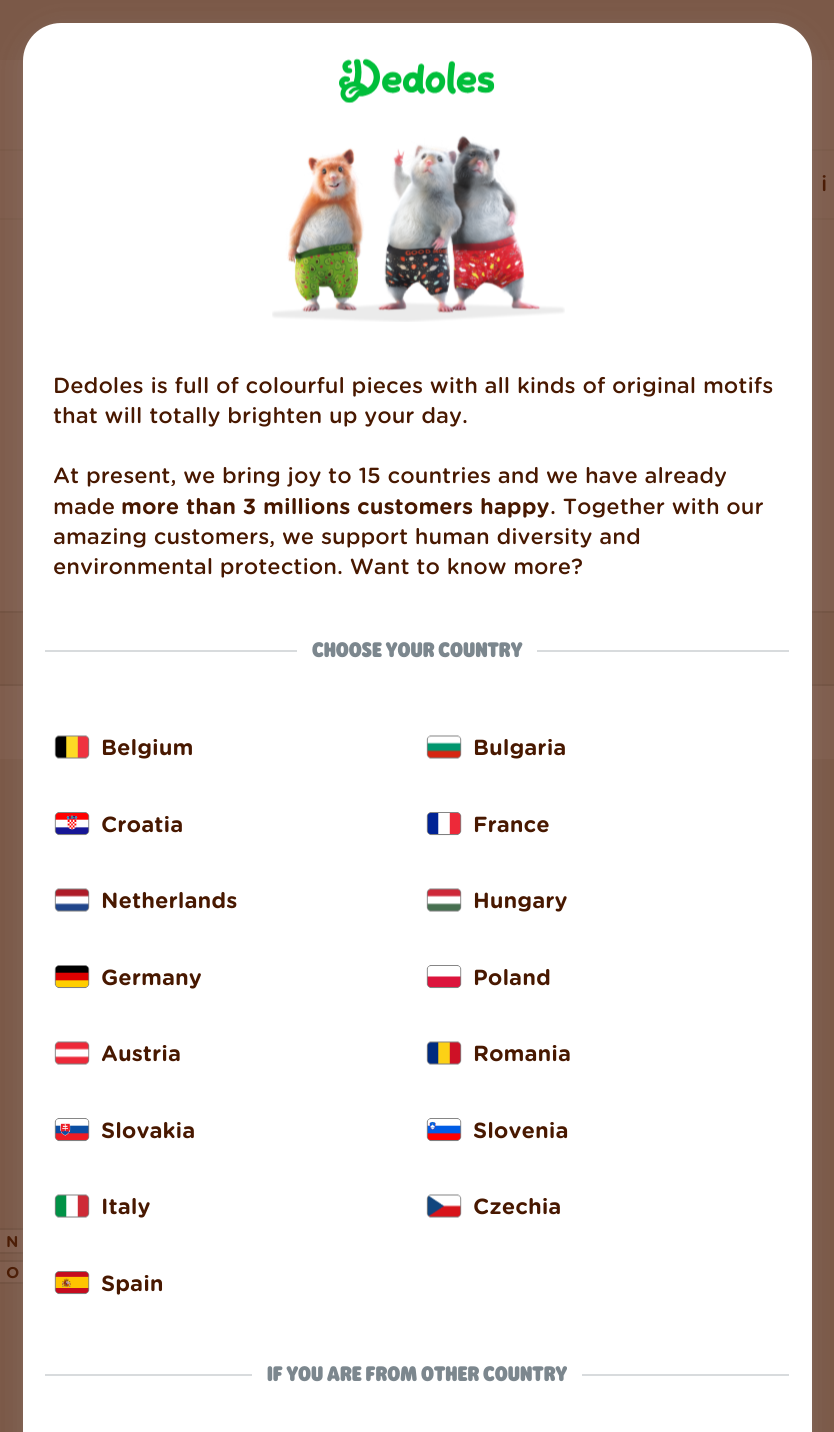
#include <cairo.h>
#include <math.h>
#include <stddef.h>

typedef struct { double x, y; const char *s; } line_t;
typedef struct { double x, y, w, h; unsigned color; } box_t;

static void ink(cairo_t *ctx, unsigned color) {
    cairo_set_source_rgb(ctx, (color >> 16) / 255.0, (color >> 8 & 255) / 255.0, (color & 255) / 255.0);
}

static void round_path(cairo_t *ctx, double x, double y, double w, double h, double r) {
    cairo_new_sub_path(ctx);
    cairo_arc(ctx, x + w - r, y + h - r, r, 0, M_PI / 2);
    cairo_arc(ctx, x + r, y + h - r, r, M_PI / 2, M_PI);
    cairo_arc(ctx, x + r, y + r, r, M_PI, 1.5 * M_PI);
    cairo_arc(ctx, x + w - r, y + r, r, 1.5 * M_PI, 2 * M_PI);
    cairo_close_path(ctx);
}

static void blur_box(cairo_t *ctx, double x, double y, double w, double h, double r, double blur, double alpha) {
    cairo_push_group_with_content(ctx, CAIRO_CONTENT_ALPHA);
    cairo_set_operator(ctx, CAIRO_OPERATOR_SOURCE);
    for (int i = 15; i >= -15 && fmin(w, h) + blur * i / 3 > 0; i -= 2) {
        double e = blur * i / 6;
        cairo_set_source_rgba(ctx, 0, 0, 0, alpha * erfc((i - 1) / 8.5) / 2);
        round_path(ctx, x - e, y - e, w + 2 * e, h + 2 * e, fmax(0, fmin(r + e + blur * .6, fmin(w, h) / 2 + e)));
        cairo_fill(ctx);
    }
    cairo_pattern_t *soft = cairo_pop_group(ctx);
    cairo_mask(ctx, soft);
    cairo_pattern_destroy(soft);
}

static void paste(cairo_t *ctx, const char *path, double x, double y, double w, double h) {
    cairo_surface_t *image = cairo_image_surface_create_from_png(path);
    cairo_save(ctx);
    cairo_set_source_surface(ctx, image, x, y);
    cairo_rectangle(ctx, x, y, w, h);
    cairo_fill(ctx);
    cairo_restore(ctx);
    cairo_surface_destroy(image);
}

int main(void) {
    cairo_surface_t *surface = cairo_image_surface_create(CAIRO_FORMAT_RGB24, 834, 1432);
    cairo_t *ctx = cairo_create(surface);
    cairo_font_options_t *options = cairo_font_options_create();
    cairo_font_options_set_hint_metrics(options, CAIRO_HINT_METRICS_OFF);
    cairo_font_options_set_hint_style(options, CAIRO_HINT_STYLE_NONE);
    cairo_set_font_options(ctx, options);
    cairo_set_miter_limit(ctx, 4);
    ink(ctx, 0x7F5D4D);
    cairo_paint(ctx);
    {
        static const box_t items[] = {
            {0, 0, 834, 60, 0x7B5948},
            {0, 149, 834, 2, 0x7B5A49},
            {0, 218, 834, 2, 0x7B5A49},
        };
        for (size_t i = 0; i < sizeof items / sizeof *items; i++) {
            ink(ctx, items[i].color);
            cairo_rectangle(ctx, items[i].x, items[i].y, items[i].w, items[i].h);
            cairo_fill(ctx);
        }
    }
    cairo_select_font_face(ctx, "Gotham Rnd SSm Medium", CAIRO_FONT_SLANT_NORMAL, CAIRO_FONT_WEIGHT_NORMAL);
    cairo_set_font_size(ctx, 21);
    ink(ctx, 0x481800);
    cairo_move_to(ctx, 821, 191);
    cairo_show_text(ctx, "i");
    {
        static const box_t items[] = {
            {0, 613, 834, 71, 0x7B5948},
            {0, 611, 834, 2, 0x735342},
            {0, 684, 834, 2, 0x735342},
            {0, 759, 23, 531, 0x7B5948},
            {0, 1230, 23, 22, 0x7F5D4D},
        };
        for (size_t i = 0; i < sizeof items / sizeof *items; i++) {
            ink(ctx, items[i].color);
            cairo_rectangle(ctx, items[i].x, items[i].y, items[i].w, items[i].h);
            cairo_fill(ctx);
        }
    }
    ink(ctx, 0x735342);
    cairo_set_fill_rule(ctx, CAIRO_FILL_RULE_EVEN_ODD);
    cairo_new_path(ctx);
    cairo_move_to(ctx, 0, 1228);
    cairo_line_to(ctx, 120, 1228);
    cairo_curve_to(ctx, 124, 1228, 128, 1232, 128, 1236);
    cairo_line_to(ctx, 128, 1246);
    cairo_curve_to(ctx, 128, 1251, 124, 1254, 120, 1254);
    cairo_line_to(ctx, 0, 1254);
    cairo_close_path(ctx);
    cairo_move_to(ctx, 0, 1230);
    cairo_line_to(ctx, 120, 1230);
    cairo_curve_to(ctx, 123, 1230, 126, 1233, 126, 1236);
    cairo_line_to(ctx, 126, 1246);
    cairo_curve_to(ctx, 126, 1250, 123, 1252, 120, 1252);
    cairo_line_to(ctx, 0, 1252);
    cairo_close_path(ctx);
    cairo_fill(ctx);
    cairo_select_font_face(ctx, "Gotham Rnd SSm", CAIRO_FONT_SLANT_NORMAL, CAIRO_FONT_WEIGHT_BOLD);
    cairo_set_font_size(ctx, 15);
    ink(ctx, 0x481800);
    cairo_move_to(ctx, 6, 1247);
    cairo_show_text(ctx, "N");
    ink(ctx, 0x7F5D4D);
    cairo_rectangle(ctx, 0, 1262, 23, 20);
    cairo_fill(ctx);
    ink(ctx, 0x735342);
    cairo_new_path(ctx);
    cairo_move_to(ctx, 0, 1260);
    cairo_line_to(ctx, 93, 1260);
    cairo_curve_to(ctx, 97, 1260, 100, 1263, 100, 1268);
    cairo_line_to(ctx, 100, 1276);
    cairo_curve_to(ctx, 100, 1281, 97, 1284, 93, 1284);
    cairo_line_to(ctx, 0, 1284);
    cairo_close_path(ctx);
    cairo_move_to(ctx, 0, 1262);
    cairo_line_to(ctx, 93, 1262);
    cairo_curve_to(ctx, 96, 1262, 99, 1264, 99, 1268);
    cairo_line_to(ctx, 99, 1276);
    cairo_curve_to(ctx, 99, 1280, 96, 1282, 93, 1282);
    cairo_line_to(ctx, 0, 1282);
    cairo_close_path(ctx);
    cairo_fill(ctx);
    ink(ctx, 0x481800);
    cairo_move_to(ctx, 6, 1278);
    cairo_show_text(ctx, "O");
    ink(ctx, 0x7B5948);
    cairo_rectangle(ctx, 812, 759, 22, 531);
    cairo_fill(ctx);
    cairo_rectangle(ctx, 0, 1290, 834, 142);
    cairo_fill(ctx);
    ink(ctx, 0xA9A9A9);
    blur_box(ctx, 23, 29, 789, 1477, 38, 12, 0.2);
    ink(ctx, 0xFFFFFF);
    cairo_new_path(ctx);
    cairo_move_to(ctx, 61, 23);
    cairo_line_to(ctx, 774, 23);
    cairo_curve_to(ctx, 795, 23, 812, 40, 812, 61);
    cairo_line_to(ctx, 812, 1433);
    cairo_line_to(ctx, 23, 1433);
    cairo_line_to(ctx, 23, 61);
    cairo_curve_to(ctx, 23, 40, 40, 23, 61, 23);
    cairo_close_path(ctx);
    cairo_fill(ctx);
    paste(ctx, "media/1.png", 339, 58, 156, 46);
    paste(ctx, "media/2.png", 272, 135, 293, 187);
    cairo_select_font_face(ctx, "Gotham Rnd SSm Medium", CAIRO_FONT_SLANT_NORMAL, CAIRO_FONT_WEIGHT_NORMAL);
    cairo_set_font_size(ctx, 21);
    ink(ctx, 0x481800);
    {
        static const line_t items[] = {
            {53, 393, "Dedoles is full of colourful pieces with all kinds of original motifs"},
            {53, 423, "that will totally brighten up your day."},
            {53, 483, "At present, we bring joy to 15 countries and we have already"},
            {53, 514, "made"},
        };
        for (size_t i = 0; i < sizeof items / sizeof *items; i++) {
            cairo_move_to(ctx, items[i].x, items[i].y);
            cairo_show_text(ctx, items[i].s);
        }
    }
    cairo_select_font_face(ctx, "Gotham Rnd SSm", CAIRO_FONT_SLANT_NORMAL, CAIRO_FONT_WEIGHT_BOLD);
    cairo_move_to(ctx, 121, 514);
    cairo_show_text(ctx, "more than 3 millions customers happy");
    cairo_select_font_face(ctx, "Gotham Rnd SSm Medium", CAIRO_FONT_SLANT_NORMAL, CAIRO_FONT_WEIGHT_NORMAL);
    {
        static const line_t items[] = {
            {550, 514, ". Together with our"},
            {53, 544, "amazing customers, we support human diversity and"},
            {53, 574, "environmental protection. Want to know more?"},
        };
        for (size_t i = 0; i < sizeof items / sizeof *items; i++) {
            cairo_move_to(ctx, items[i].x, items[i].y);
            cairo_show_text(ctx, items[i].s);
        }
    }
    ink(ctx, 0xD8DBDD);
    cairo_rectangle(ctx, 45, 650, 744, 2);
    cairo_fill(ctx);
    ink(ctx, 0xFFFFFF);
    cairo_rectangle(ctx, 297, 650, 240, 2);
    cairo_fill(ctx);
    cairo_select_font_face(ctx, "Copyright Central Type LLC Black", CAIRO_FONT_SLANT_NORMAL, CAIRO_FONT_WEIGHT_NORMAL);
    ink(ctx, 0x7C878E);
    cairo_move_to(ctx, 312, 657);
    cairo_show_text(ctx, "CHOOSE YOUR COUNTRY");
    paste(ctx, "media/3.png", 54, 735, 36, 24);
    cairo_select_font_face(ctx, "Gotham Rnd SSm", CAIRO_FONT_SLANT_NORMAL, CAIRO_FONT_WEIGHT_BOLD);
    ink(ctx, 0x481800);
    cairo_move_to(ctx, 101, 755);
    cairo_show_text(ctx, "Belgium");
    paste(ctx, "media/4.png", 426, 735, 36, 24);
    cairo_move_to(ctx, 473, 755);
    cairo_show_text(ctx, "Bulgaria");
    paste(ctx, "media/5.png", 54, 812, 36, 24);
    cairo_move_to(ctx, 101, 832);
    cairo_show_text(ctx, "Croatia");
    paste(ctx, "media/6.png", 426, 812, 36, 24);
    cairo_move_to(ctx, 473, 832);
    cairo_show_text(ctx, "France");
    paste(ctx, "media/7.png", 54, 888, 36, 24);
    cairo_move_to(ctx, 101, 908);
    cairo_show_text(ctx, "Netherlands");
    paste(ctx, "media/8.png", 426, 888, 36, 24);
    cairo_move_to(ctx, 473, 908);
    cairo_show_text(ctx, "Hungary");
    paste(ctx, "media/9.png", 54, 965, 36, 24);
    cairo_move_to(ctx, 101, 985);
    cairo_show_text(ctx, "Germany");
    paste(ctx, "media/10.png", 426, 965, 36, 24);
    cairo_move_to(ctx, 473, 985);
    cairo_show_text(ctx, "Poland");
    paste(ctx, "media/11.png", 54, 1041, 36, 24);
    cairo_move_to(ctx, 101, 1061);
    cairo_show_text(ctx, "Austria");
    paste(ctx, "media/12.png", 426, 1041, 36, 24);
    cairo_move_to(ctx, 473, 1061);
    cairo_show_text(ctx, "Romania");
    paste(ctx, "media/13.png", 54, 1118, 36, 24);
    cairo_move_to(ctx, 101, 1138);
    cairo_show_text(ctx, "Slovakia");
    paste(ctx, "media/14.png", 426, 1118, 36, 24);
    cairo_move_to(ctx, 473, 1138);
    cairo_show_text(ctx, "Slovenia");
    paste(ctx, "media/15.png", 54, 1194, 36, 24);
    cairo_move_to(ctx, 101, 1214);
    cairo_show_text(ctx, "Italy");
    paste(ctx, "media/16.png", 426, 1194, 36, 24);
    cairo_move_to(ctx, 473, 1214);
    cairo_show_text(ctx, "Czechia");
    paste(ctx, "media/17.png", 54, 1271, 36, 24);
    cairo_move_to(ctx, 101, 1291);
    cairo_show_text(ctx, "Spain");
    ink(ctx, 0xD8DBDD);
    cairo_rectangle(ctx, 45, 1374, 744, 2);
    cairo_fill(ctx);
    ink(ctx, 0xFFFFFF);
    cairo_rectangle(ctx, 252, 1374, 330, 2);
    cairo_fill(ctx);
    cairo_select_font_face(ctx, "Copyright Central Type LLC Black", CAIRO_FONT_SLANT_NORMAL, CAIRO_FONT_WEIGHT_NORMAL);
    ink(ctx, 0x7C878E);
    cairo_move_to(ctx, 267, 1381);
    cairo_show_text(ctx, "IF YOU ARE FROM OTHER COUNTRY");
    cairo_surface_write_to_png(surface, "image.png");
    cairo_font_options_destroy(options);
    cairo_destroy(ctx);
    cairo_surface_destroy(surface);
    return 0;
}
